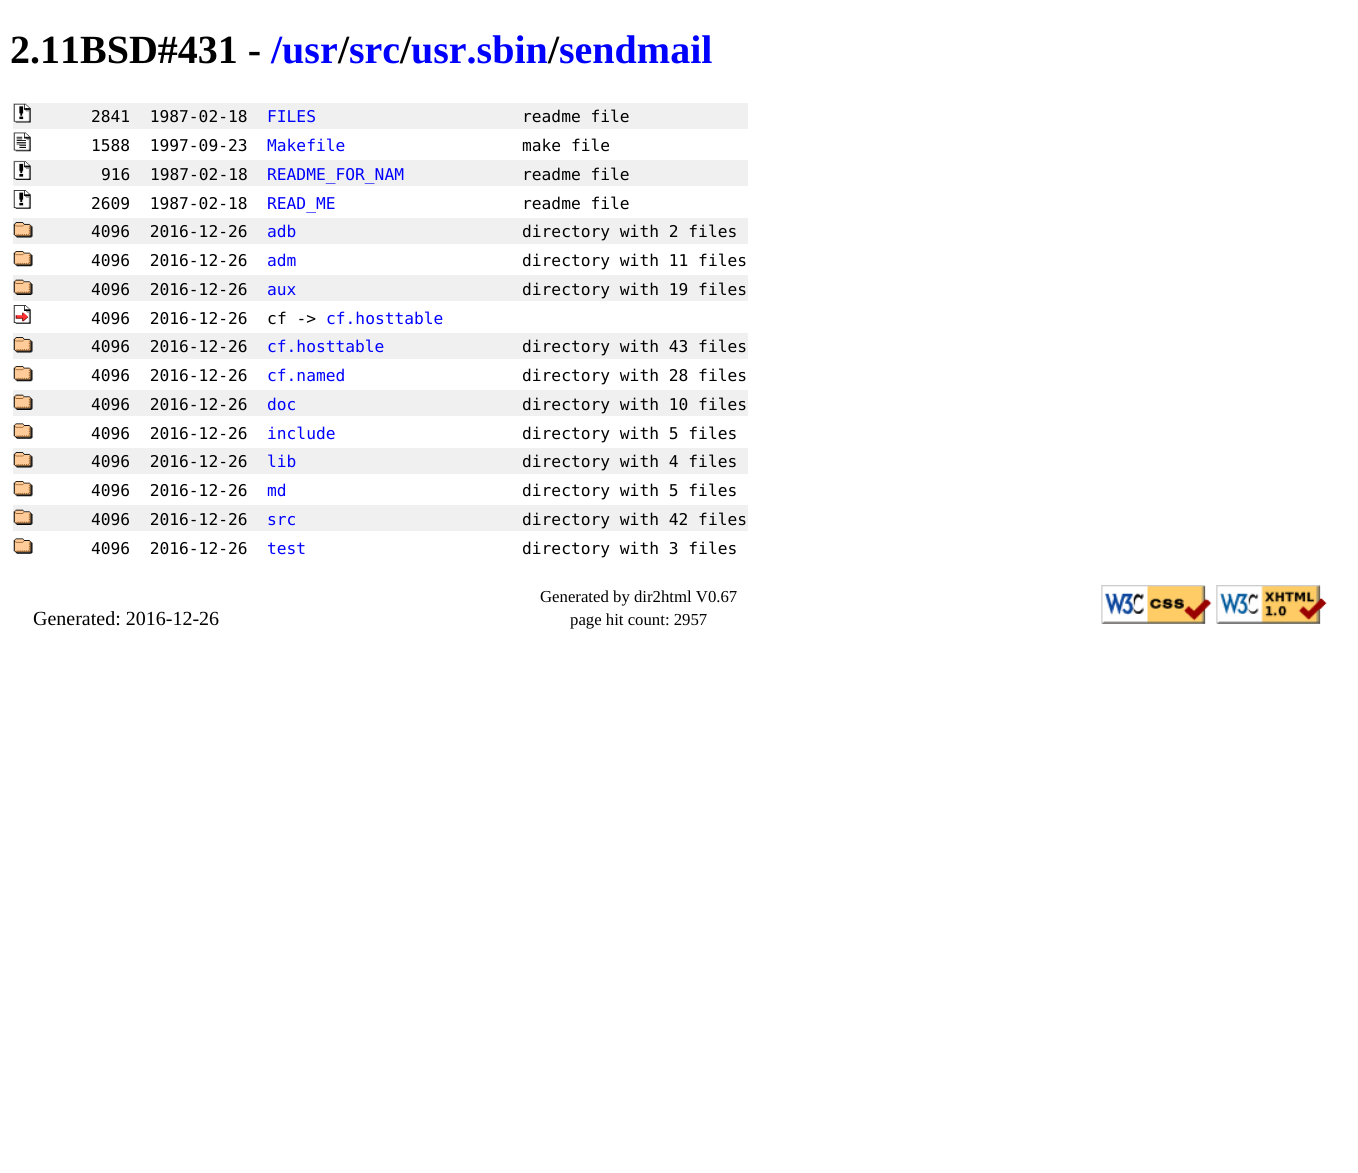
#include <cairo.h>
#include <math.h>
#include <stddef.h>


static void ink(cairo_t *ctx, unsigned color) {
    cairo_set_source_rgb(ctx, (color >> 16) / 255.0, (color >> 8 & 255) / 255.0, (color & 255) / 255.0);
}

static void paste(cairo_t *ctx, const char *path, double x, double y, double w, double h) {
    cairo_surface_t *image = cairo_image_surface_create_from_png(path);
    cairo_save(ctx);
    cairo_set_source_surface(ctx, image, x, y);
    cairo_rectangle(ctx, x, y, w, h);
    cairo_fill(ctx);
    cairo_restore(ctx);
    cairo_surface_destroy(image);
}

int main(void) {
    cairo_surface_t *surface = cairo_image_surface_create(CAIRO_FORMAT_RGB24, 1358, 1173);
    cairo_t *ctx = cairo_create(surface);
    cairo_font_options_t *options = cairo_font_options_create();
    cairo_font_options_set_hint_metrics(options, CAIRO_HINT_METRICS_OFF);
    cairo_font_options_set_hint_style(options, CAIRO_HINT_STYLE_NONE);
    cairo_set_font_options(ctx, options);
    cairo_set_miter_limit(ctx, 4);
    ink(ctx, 0xFFFFFF);
    cairo_paint(ctx);
    cairo_select_font_face(ctx, "Liberation Serif", CAIRO_FONT_SLANT_NORMAL, CAIRO_FONT_WEIGHT_BOLD);
    cairo_set_font_size(ctx, 40);
    ink(ctx, 0x000000);
    cairo_move_to(ctx, 10, 63);
    cairo_show_text(ctx, "2.11BSD#431 -");
    ink(ctx, 0x0000FF);
    cairo_move_to(ctx, 271, 63);
    cairo_show_text(ctx, "/usr");
    ink(ctx, 0x000000);
    cairo_move_to(ctx, 338, 63);
    cairo_show_text(ctx, "/");
    ink(ctx, 0x0000FF);
    cairo_move_to(ctx, 349, 63);
    cairo_show_text(ctx, "src");
    ink(ctx, 0x000000);
    cairo_move_to(ctx, 400, 63);
    cairo_show_text(ctx, "/");
    ink(ctx, 0x0000FF);
    cairo_move_to(ctx, 411, 63);
    cairo_show_text(ctx, "usr.sbin");
    ink(ctx, 0x000000);
    cairo_move_to(ctx, 548, 63);
    cairo_show_text(ctx, "/");
    ink(ctx, 0x0000FF);
    cairo_move_to(ctx, 559, 63);
    cairo_show_text(ctx, "sendmail");
    ink(ctx, 0xF0F0F0);
    cairo_rectangle(ctx, 13, 103, 735, 26);
    cairo_fill(ctx);
    paste(ctx, "media/1.png", 13, 103, 18, 20);
    cairo_select_font_face(ctx, "DejaVu Sans Mono", CAIRO_FONT_SLANT_NORMAL, CAIRO_FONT_WEIGHT_NORMAL);
    cairo_set_font_size(ctx, 16.25);
    ink(ctx, 0x000000);
    cairo_move_to(ctx, 91, 122);
    cairo_show_text(ctx, "2841  1987-02-18");
    ink(ctx, 0x0000FF);
    cairo_move_to(ctx, 267, 122);
    cairo_show_text(ctx, "FILES");
    ink(ctx, 0x000000);
    cairo_move_to(ctx, 522, 122);
    cairo_show_text(ctx, "readme file");
    paste(ctx, "media/2.png", 13, 132, 18, 20);
    cairo_move_to(ctx, 91, 151);
    cairo_show_text(ctx, "1588  1997-09-23");
    ink(ctx, 0x0000FF);
    cairo_move_to(ctx, 267, 151);
    cairo_show_text(ctx, "Makefile");
    ink(ctx, 0x000000);
    cairo_move_to(ctx, 522, 151);
    cairo_show_text(ctx, "make file");
    ink(ctx, 0xF0F0F0);
    cairo_rectangle(ctx, 13, 160, 735, 26);
    cairo_fill(ctx);
    paste(ctx, "media/3.png", 13, 161, 18, 19);
    ink(ctx, 0x000000);
    cairo_move_to(ctx, 101, 180);
    cairo_show_text(ctx, "916  1987-02-18");
    ink(ctx, 0x0000FF);
    cairo_move_to(ctx, 267, 180);
    cairo_show_text(ctx, "README_FOR_NAM");
    ink(ctx, 0x000000);
    cairo_move_to(ctx, 522, 180);
    cairo_show_text(ctx, "readme file");
    paste(ctx, "media/4.png", 13, 190, 18, 19);
    cairo_move_to(ctx, 91, 209);
    cairo_show_text(ctx, "2609  1987-02-18");
    ink(ctx, 0x0000FF);
    cairo_move_to(ctx, 267, 209);
    cairo_show_text(ctx, "READ_ME");
    ink(ctx, 0x000000);
    cairo_move_to(ctx, 522, 209);
    cairo_show_text(ctx, "readme file");
    ink(ctx, 0xF0F0F0);
    cairo_rectangle(ctx, 13, 218, 735, 26);
    cairo_fill(ctx);
    paste(ctx, "media/5.png", 13, 222, 20, 16);
    ink(ctx, 0x000000);
    cairo_move_to(ctx, 91, 237);
    cairo_show_text(ctx, "4096  2016-12-26");
    ink(ctx, 0x0000FF);
    cairo_move_to(ctx, 267, 237);
    cairo_show_text(ctx, "adb");
    ink(ctx, 0x000000);
    cairo_move_to(ctx, 522, 237);
    cairo_show_text(ctx, "directory with 2 files");
    paste(ctx, "media/6.png", 13, 251, 20, 16);
    cairo_move_to(ctx, 91, 266);
    cairo_show_text(ctx, "4096  2016-12-26");
    ink(ctx, 0x0000FF);
    cairo_move_to(ctx, 267, 266);
    cairo_show_text(ctx, "adm");
    ink(ctx, 0x000000);
    cairo_move_to(ctx, 522, 266);
    cairo_show_text(ctx, "directory with 11 files");
    ink(ctx, 0xF0F0F0);
    cairo_rectangle(ctx, 13, 275, 735, 26);
    cairo_fill(ctx);
    paste(ctx, "media/7.png", 13, 279, 20, 16);
    ink(ctx, 0x000000);
    cairo_move_to(ctx, 91, 295);
    cairo_show_text(ctx, "4096  2016-12-26");
    ink(ctx, 0x0000FF);
    cairo_move_to(ctx, 267, 295);
    cairo_show_text(ctx, "aux");
    ink(ctx, 0x000000);
    cairo_move_to(ctx, 522, 295);
    cairo_show_text(ctx, "directory with 19 files");
    paste(ctx, "media/8.png", 13, 305, 18, 19);
    cairo_move_to(ctx, 91, 324);
    cairo_show_text(ctx, "4096  2016-12-26  cf ->");
    ink(ctx, 0x0000FF);
    cairo_move_to(ctx, 326, 324);
    cairo_show_text(ctx, "cf.hosttable");
    ink(ctx, 0xF0F0F0);
    cairo_rectangle(ctx, 13, 333, 735, 26);
    cairo_fill(ctx);
    paste(ctx, "media/5.png", 13, 337, 20, 16);
    ink(ctx, 0x000000);
    cairo_move_to(ctx, 91, 352);
    cairo_show_text(ctx, "4096  2016-12-26");
    ink(ctx, 0x0000FF);
    cairo_move_to(ctx, 267, 352);
    cairo_show_text(ctx, "cf.hosttable");
    ink(ctx, 0x000000);
    cairo_move_to(ctx, 522, 352);
    cairo_show_text(ctx, "directory with 43 files");
    paste(ctx, "media/6.png", 13, 366, 20, 16);
    cairo_move_to(ctx, 91, 381);
    cairo_show_text(ctx, "4096  2016-12-26");
    ink(ctx, 0x0000FF);
    cairo_move_to(ctx, 267, 381);
    cairo_show_text(ctx, "cf.named");
    ink(ctx, 0x000000);
    cairo_move_to(ctx, 522, 381);
    cairo_show_text(ctx, "directory with 28 files");
    ink(ctx, 0xF0F0F0);
    cairo_rectangle(ctx, 13, 390, 735, 26);
    cairo_fill(ctx);
    paste(ctx, "media/7.png", 13, 394, 20, 16);
    ink(ctx, 0x000000);
    cairo_move_to(ctx, 91, 410);
    cairo_show_text(ctx, "4096  2016-12-26");
    ink(ctx, 0x0000FF);
    cairo_move_to(ctx, 267, 410);
    cairo_show_text(ctx, "doc");
    ink(ctx, 0x000000);
    cairo_move_to(ctx, 522, 410);
    cairo_show_text(ctx, "directory with 10 files");
    paste(ctx, "media/9.png", 13, 423, 20, 16);
    cairo_move_to(ctx, 91, 439);
    cairo_show_text(ctx, "4096  2016-12-26");
    ink(ctx, 0x0000FF);
    cairo_move_to(ctx, 267, 439);
    cairo_show_text(ctx, "include");
    ink(ctx, 0x000000);
    cairo_move_to(ctx, 522, 439);
    cairo_show_text(ctx, "directory with 5 files");
    ink(ctx, 0xF0F0F0);
    cairo_rectangle(ctx, 13, 448, 735, 26);
    cairo_fill(ctx);
    paste(ctx, "media/5.png", 13, 452, 20, 16);
    ink(ctx, 0x000000);
    cairo_move_to(ctx, 91, 467);
    cairo_show_text(ctx, "4096  2016-12-26");
    ink(ctx, 0x0000FF);
    cairo_move_to(ctx, 267, 467);
    cairo_show_text(ctx, "lib");
    ink(ctx, 0x000000);
    cairo_move_to(ctx, 522, 467);
    cairo_show_text(ctx, "directory with 4 files");
    paste(ctx, "media/6.png", 13, 481, 20, 16);
    cairo_move_to(ctx, 91, 496);
    cairo_show_text(ctx, "4096  2016-12-26");
    ink(ctx, 0x0000FF);
    cairo_move_to(ctx, 267, 496);
    cairo_show_text(ctx, "md");
    ink(ctx, 0x000000);
    cairo_move_to(ctx, 522, 496);
    cairo_show_text(ctx, "directory with 5 files");
    ink(ctx, 0xF0F0F0);
    cairo_rectangle(ctx, 13, 505, 735, 26);
    cairo_fill(ctx);
    paste(ctx, "media/7.png", 13, 509, 20, 16);
    ink(ctx, 0x000000);
    cairo_move_to(ctx, 91, 525);
    cairo_show_text(ctx, "4096  2016-12-26");
    ink(ctx, 0x0000FF);
    cairo_move_to(ctx, 267, 525);
    cairo_show_text(ctx, "src");
    ink(ctx, 0x000000);
    cairo_move_to(ctx, 522, 525);
    cairo_show_text(ctx, "directory with 42 files");
    paste(ctx, "media/9.png", 13, 538, 20, 16);
    cairo_move_to(ctx, 91, 554);
    cairo_show_text(ctx, "4096  2016-12-26");
    ink(ctx, 0x0000FF);
    cairo_move_to(ctx, 267, 554);
    cairo_show_text(ctx, "test");
    ink(ctx, 0x000000);
    cairo_move_to(ctx, 522, 554);
    cairo_show_text(ctx, "directory with 3 files");
    cairo_select_font_face(ctx, "Liberation Serif", CAIRO_FONT_SLANT_NORMAL, CAIRO_FONT_WEIGHT_NORMAL);
    cairo_set_font_size(ctx, 20);
    cairo_move_to(ctx, 33, 625);
    cairo_show_text(ctx, "Generated: 2016-12-26");
    cairo_set_font_size(ctx, 16.75);
    cairo_move_to(ctx, 540, 602);
    cairo_show_text(ctx, "Generated by dir2html V0.67");
    cairo_move_to(ctx, 570, 625);
    cairo_show_text(ctx, "page hit count: 2957");
    paste(ctx, "media/10.png", 1101, 585, 111, 39);
    paste(ctx, "media/11.png", 1216, 585, 111, 39);
    cairo_surface_write_to_png(surface, "image.png");
    cairo_font_options_destroy(options);
    cairo_destroy(ctx);
    cairo_surface_destroy(surface);
    return 0;
}
